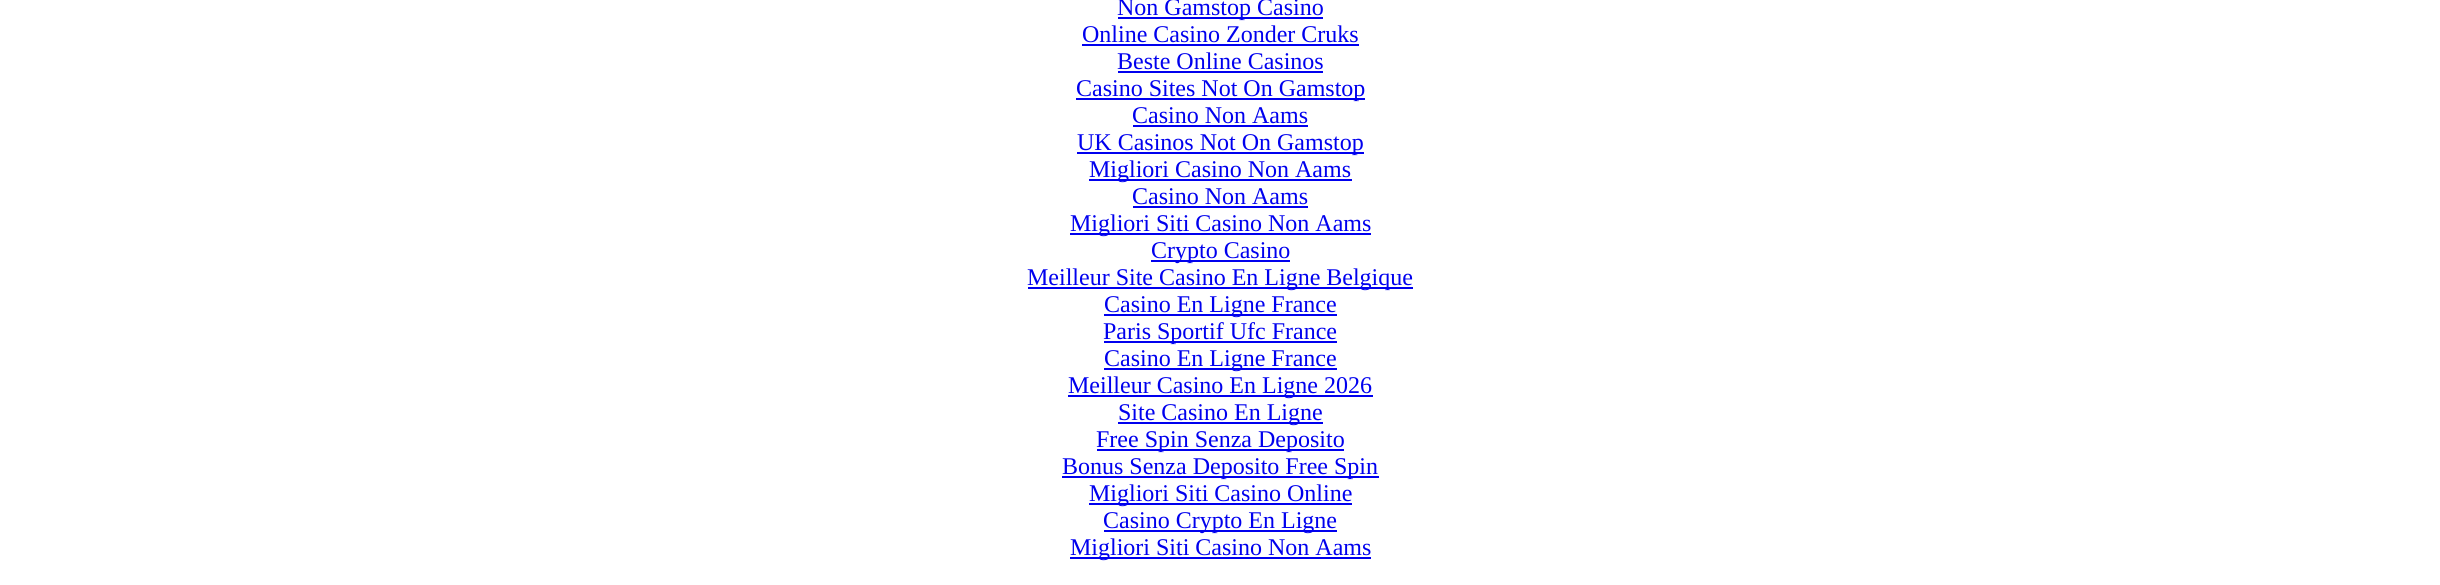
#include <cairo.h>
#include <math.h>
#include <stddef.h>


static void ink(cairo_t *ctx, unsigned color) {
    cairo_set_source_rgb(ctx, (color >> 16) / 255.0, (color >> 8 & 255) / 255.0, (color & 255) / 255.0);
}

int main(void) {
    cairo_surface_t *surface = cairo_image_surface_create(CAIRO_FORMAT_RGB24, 2440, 585);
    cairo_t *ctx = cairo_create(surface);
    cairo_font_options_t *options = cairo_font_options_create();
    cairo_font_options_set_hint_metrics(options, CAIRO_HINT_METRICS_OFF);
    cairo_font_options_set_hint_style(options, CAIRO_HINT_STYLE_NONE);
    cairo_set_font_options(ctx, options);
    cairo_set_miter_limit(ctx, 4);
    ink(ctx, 0xFFFFFF);
    cairo_paint(ctx);
    ink(ctx, 0x0000EE);
    cairo_rectangle(ctx, 1118, 17, 205, 2);
    cairo_fill(ctx);
    cairo_select_font_face(ctx, "Liberation Serif", CAIRO_FONT_SLANT_NORMAL, CAIRO_FONT_WEIGHT_NORMAL);
    cairo_set_font_size(ctx, 24);
    cairo_move_to(ctx, 1117, 15);
    cairo_show_text(ctx, "Non Gamstop Casino");
    cairo_move_to(ctx, 1082, 42);
    cairo_show_text(ctx, "Online Casino Zonder Cruks");
    cairo_rectangle(ctx, 1082, 44, 277, 2);
    cairo_fill(ctx);
    cairo_move_to(ctx, 1117, 69);
    cairo_show_text(ctx, "Beste Online Casinos");
    cairo_rectangle(ctx, 1118, 71, 205, 2);
    cairo_fill(ctx);
    cairo_rectangle(ctx, 1076, 98, 289, 2);
    cairo_fill(ctx);
    cairo_move_to(ctx, 1076, 96);
    cairo_show_text(ctx, "Casino Sites Not On Gamstop");
    cairo_move_to(ctx, 1132, 123);
    cairo_show_text(ctx, "Casino Non Aams");
    cairo_rectangle(ctx, 1133, 125, 175, 2);
    cairo_fill(ctx);
    cairo_rectangle(ctx, 1077, 152, 287, 2);
    cairo_fill(ctx);
    cairo_move_to(ctx, 1077, 150);
    cairo_show_text(ctx, "UK Casinos Not On Gamstop");
    cairo_rectangle(ctx, 1089, 179, 263, 2);
    cairo_fill(ctx);
    cairo_move_to(ctx, 1089, 177);
    cairo_show_text(ctx, "Migliori Casino Non Aams");
    cairo_move_to(ctx, 1132, 204);
    cairo_show_text(ctx, "Casino Non Aams");
    cairo_rectangle(ctx, 1133, 206, 175, 2);
    cairo_fill(ctx);
    cairo_rectangle(ctx, 1070, 233, 301, 2);
    cairo_fill(ctx);
    cairo_move_to(ctx, 1070, 231);
    cairo_show_text(ctx, "Migliori Siti Casino Non Aams");
    cairo_rectangle(ctx, 1151, 260, 139, 2);
    cairo_fill(ctx);
    cairo_move_to(ctx, 1151, 258);
    cairo_show_text(ctx, "Crypto Casino");
    cairo_rectangle(ctx, 1028, 287, 385, 2);
    cairo_fill(ctx);
    cairo_move_to(ctx, 1027, 285);
    cairo_show_text(ctx, "Meilleur Site Casino En Ligne Belgique");
    cairo_rectangle(ctx, 1104, 314, 233, 2);
    cairo_fill(ctx);
    cairo_move_to(ctx, 1104, 312);
    cairo_show_text(ctx, "Casino En Ligne France");
    cairo_rectangle(ctx, 1104, 341, 233, 2);
    cairo_fill(ctx);
    cairo_move_to(ctx, 1103, 339);
    cairo_show_text(ctx, "Paris Sportif Ufc France");
    cairo_rectangle(ctx, 1104, 368, 233, 2);
    cairo_fill(ctx);
    cairo_move_to(ctx, 1104, 366);
    cairo_show_text(ctx, "Casino En Ligne France");
    cairo_rectangle(ctx, 1068, 395, 305, 2);
    cairo_fill(ctx);
    cairo_move_to(ctx, 1068, 393);
    cairo_show_text(ctx, "Meilleur Casino En Ligne 2026");
    cairo_rectangle(ctx, 1118, 422, 205, 2);
    cairo_fill(ctx);
    cairo_move_to(ctx, 1118, 420);
    cairo_show_text(ctx, "Site Casino En Ligne");
    cairo_rectangle(ctx, 1097, 449, 247, 2);
    cairo_fill(ctx);
    cairo_move_to(ctx, 1096, 447);
    cairo_show_text(ctx, "Free Spin Senza Deposito");
    cairo_rectangle(ctx, 1062, 476, 317, 2);
    cairo_fill(ctx);
    cairo_move_to(ctx, 1062, 474);
    cairo_show_text(ctx, "Bonus Senza Deposito Free Spin");
    cairo_rectangle(ctx, 1089, 503, 263, 2);
    cairo_fill(ctx);
    cairo_move_to(ctx, 1089, 501);
    cairo_show_text(ctx, "Migliori Siti Casino Online");
    cairo_rectangle(ctx, 1104, 530, 233, 2);
    cairo_fill(ctx);
    cairo_move_to(ctx, 1103, 528);
    cairo_show_text(ctx, "Casino Crypto En Ligne");
    cairo_rectangle(ctx, 1070, 557, 301, 2);
    cairo_fill(ctx);
    cairo_move_to(ctx, 1070, 555);
    cairo_show_text(ctx, "Migliori Siti Casino Non Aams");
    cairo_surface_write_to_png(surface, "image.png");
    cairo_font_options_destroy(options);
    cairo_destroy(ctx);
    cairo_surface_destroy(surface);
    return 0;
}
